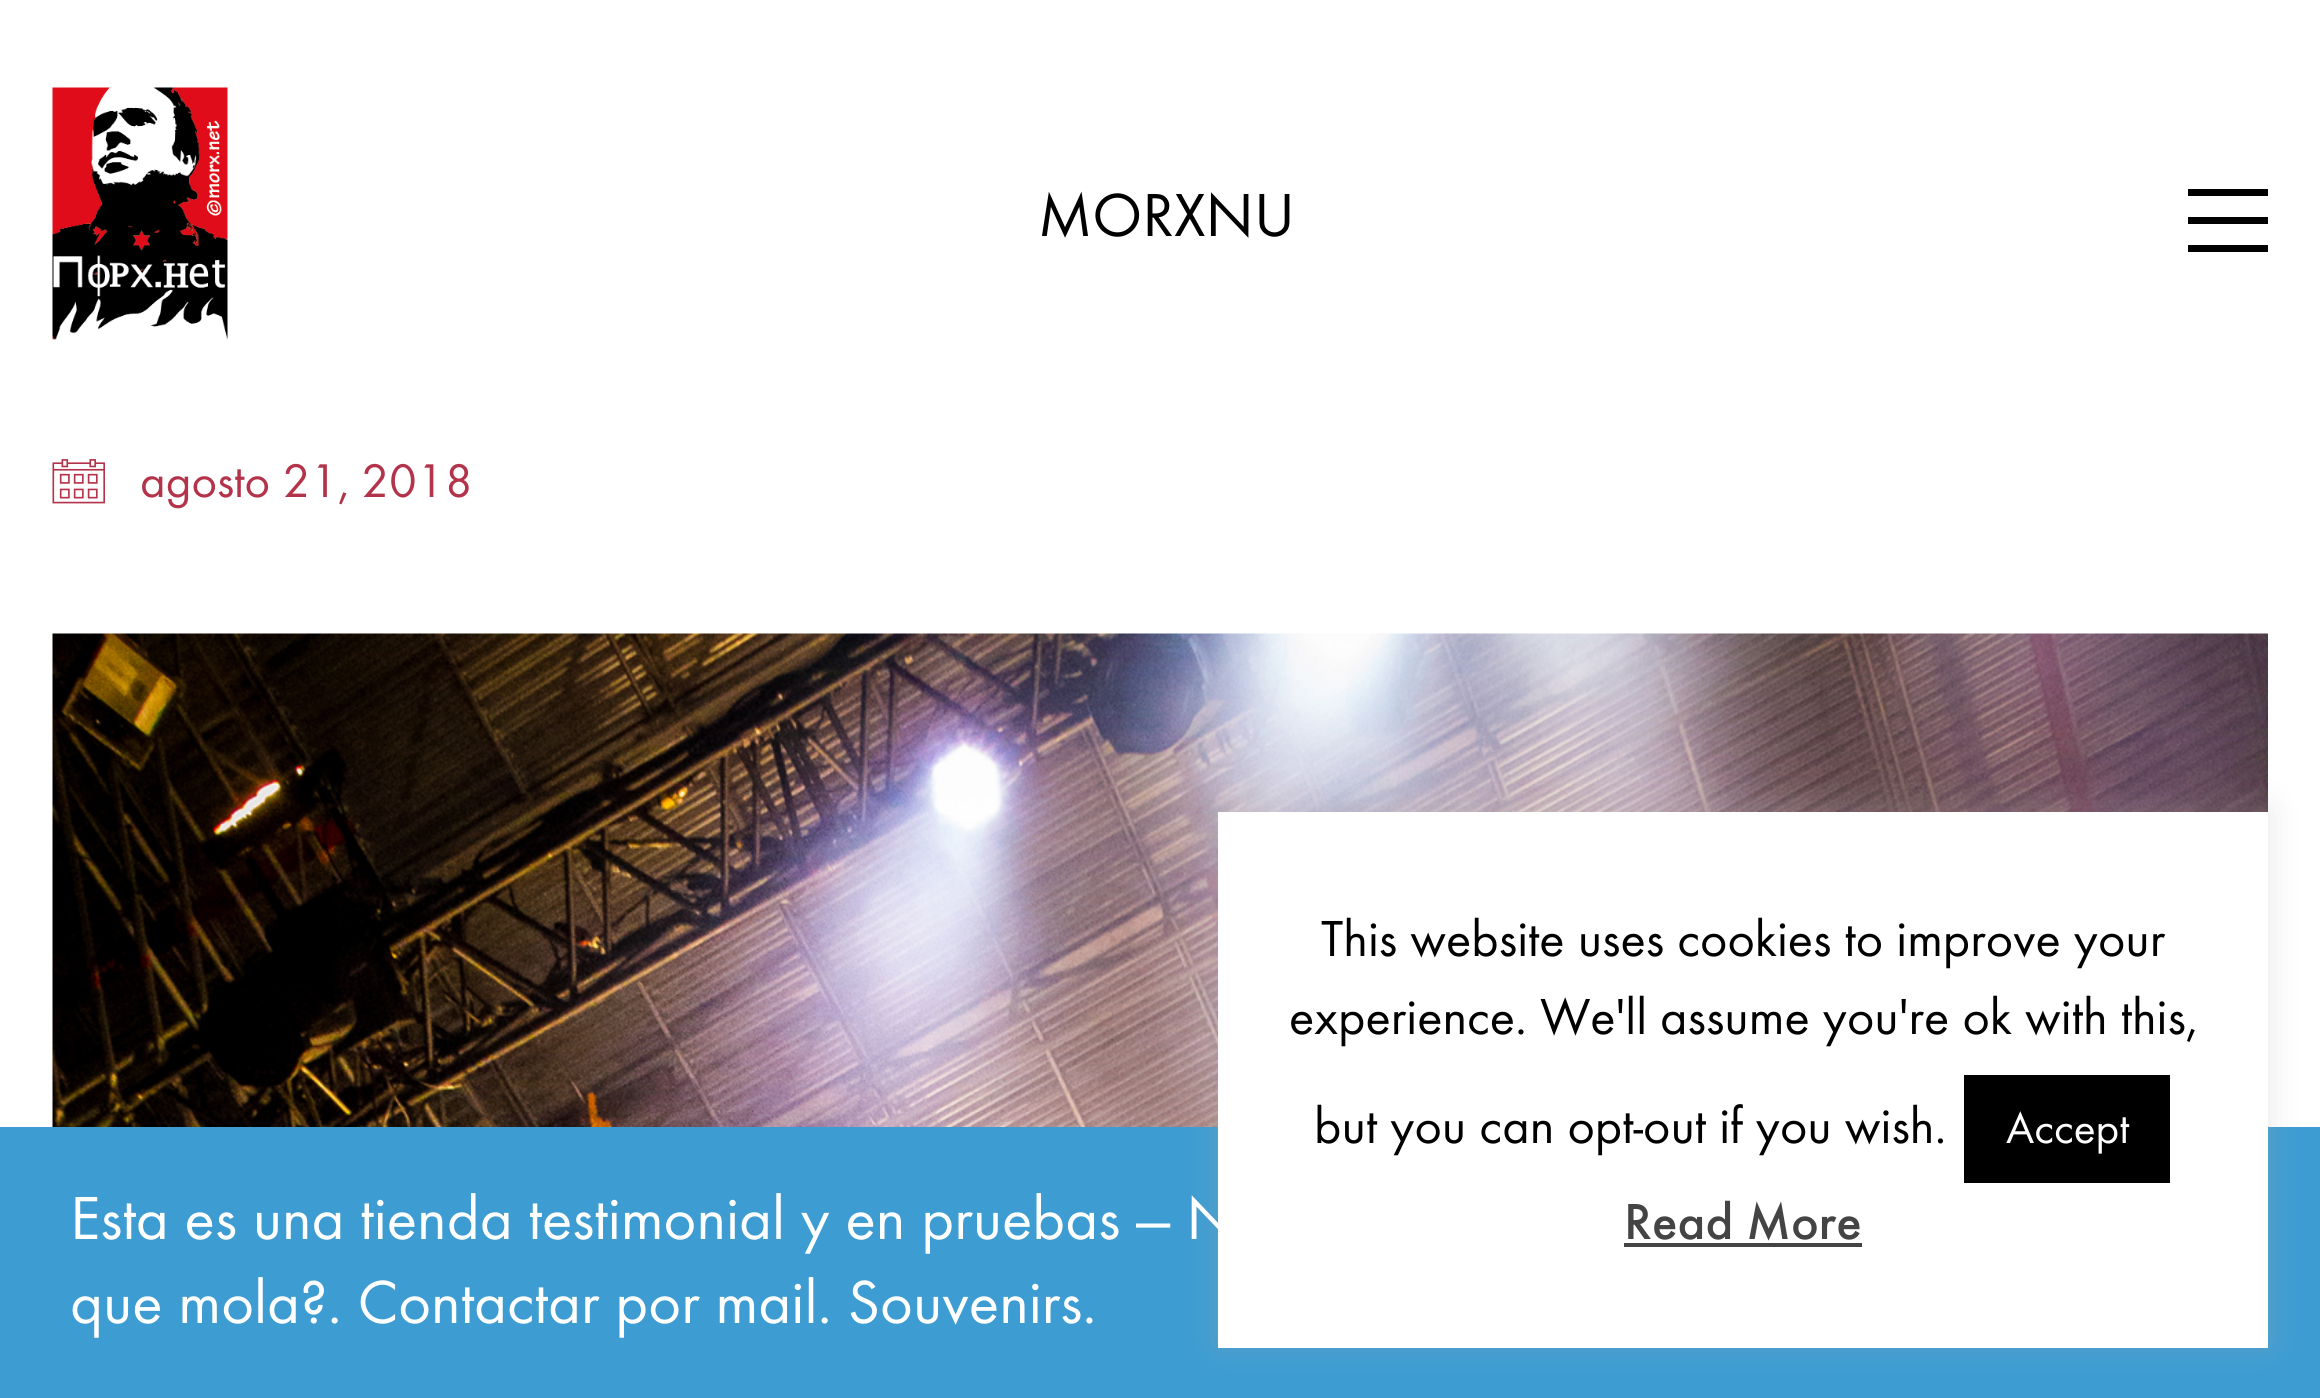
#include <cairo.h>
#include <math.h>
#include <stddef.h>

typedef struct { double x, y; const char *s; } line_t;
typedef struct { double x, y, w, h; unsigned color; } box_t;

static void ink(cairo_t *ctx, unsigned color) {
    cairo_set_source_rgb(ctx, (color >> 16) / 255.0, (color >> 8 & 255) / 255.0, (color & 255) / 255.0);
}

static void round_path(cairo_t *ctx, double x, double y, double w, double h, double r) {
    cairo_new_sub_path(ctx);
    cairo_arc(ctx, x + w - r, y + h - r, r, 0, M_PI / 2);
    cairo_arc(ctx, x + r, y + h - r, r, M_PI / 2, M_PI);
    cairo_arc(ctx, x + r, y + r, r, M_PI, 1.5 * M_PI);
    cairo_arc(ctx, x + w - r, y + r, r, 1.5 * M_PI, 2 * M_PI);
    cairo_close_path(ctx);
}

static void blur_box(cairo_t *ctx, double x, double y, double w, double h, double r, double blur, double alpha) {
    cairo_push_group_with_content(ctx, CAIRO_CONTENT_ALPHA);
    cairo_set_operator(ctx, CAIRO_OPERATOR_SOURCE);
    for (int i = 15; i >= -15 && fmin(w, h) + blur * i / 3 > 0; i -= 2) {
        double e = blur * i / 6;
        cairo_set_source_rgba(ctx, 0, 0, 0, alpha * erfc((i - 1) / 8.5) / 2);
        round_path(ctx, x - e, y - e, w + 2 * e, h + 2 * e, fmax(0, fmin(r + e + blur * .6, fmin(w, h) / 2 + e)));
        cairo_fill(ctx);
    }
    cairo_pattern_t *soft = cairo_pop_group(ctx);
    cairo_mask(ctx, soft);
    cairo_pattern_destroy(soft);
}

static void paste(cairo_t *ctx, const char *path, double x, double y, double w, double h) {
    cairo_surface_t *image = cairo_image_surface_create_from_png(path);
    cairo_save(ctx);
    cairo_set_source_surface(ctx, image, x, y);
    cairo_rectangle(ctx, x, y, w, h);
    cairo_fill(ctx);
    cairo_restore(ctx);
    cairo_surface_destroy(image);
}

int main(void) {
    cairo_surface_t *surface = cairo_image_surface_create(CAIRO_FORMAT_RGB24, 2320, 1398);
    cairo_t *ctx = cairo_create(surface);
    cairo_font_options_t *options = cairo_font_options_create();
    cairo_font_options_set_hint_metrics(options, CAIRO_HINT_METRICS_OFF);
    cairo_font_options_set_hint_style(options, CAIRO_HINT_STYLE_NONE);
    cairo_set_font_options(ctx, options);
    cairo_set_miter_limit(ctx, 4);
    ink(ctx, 0xFFFFFF);
    cairo_paint(ctx);
    paste(ctx, "media/1.png", 52, 87, 176, 253);
    cairo_select_font_face(ctx, "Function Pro", CAIRO_FONT_SLANT_NORMAL, CAIRO_FONT_WEIGHT_NORMAL);
    cairo_set_font_size(ctx, 63);
    ink(ctx, 0x000000);
    cairo_move_to(ctx, 1038, 236);
    cairo_show_text(ctx, "MORXNU");
    {
        static const box_t items[] = {
            {2188, 189, 80, 7, 0x000000},
            {2188, 217, 80, 7, 0x000000},
            {2188, 245, 80, 7, 0x000000},
        };
        for (size_t i = 0; i < sizeof items / sizeof *items; i++) {
            ink(ctx, items[i].color);
            cairo_rectangle(ctx, items[i].x, items[i].y, items[i].w, items[i].h);
            cairo_fill(ctx);
        }
    }
    paste(ctx, "media/2.png", 52, 459, 53, 45);
    cairo_set_font_size(ctx, 49);
    ink(ctx, 0xB3334A);
    cairo_move_to(ctx, 140, 497);
    cairo_show_text(ctx, "agosto 21, 2018");
    paste(ctx, "media/3.png", 52, 633, 2216, 494);
    ink(ctx, 0x3D9CD2);
    cairo_rectangle(ctx, 0, 1127, 2320, 271);
    cairo_fill(ctx);
    ink(ctx, 0xACABAB);
    blur_box(ctx, 1218, 809, 1050, 535, 0, 17.5, 0.3);
    ink(ctx, 0xFFFFFF);
    cairo_rectangle(ctx, 1218, 812, 1050, 536);
    cairo_fill(ctx);
    cairo_set_font_size(ctx, 52.5);
    ink(ctx, 0x000000);
    {
        static const line_t items[] = {
            {1321, 956, "This website uses cookies to improve your"},
            {1289, 1034, "experience. We'll assume you're ok with this,"},
            {1314, 1143, "but you can opt-out if you wish."},
        };
        for (size_t i = 0; i < sizeof items / sizeof *items; i++) {
            cairo_move_to(ctx, items[i].x, items[i].y);
            cairo_show_text(ctx, items[i].s);
        }
    }
    cairo_rectangle(ctx, 1964, 1075, 206, 108);
    cairo_fill(ctx);
    cairo_set_font_size(ctx, 45.5);
    ink(ctx, 0xFFFFFF);
    cairo_move_to(ctx, 2006, 1143);
    cairo_show_text(ctx, "Accept");
    cairo_select_font_face(ctx, "Function Pro Medium", CAIRO_FONT_SLANT_NORMAL, CAIRO_FONT_WEIGHT_NORMAL);
    cairo_set_font_size(ctx, 52.5);
    ink(ctx, 0x444444);
    cairo_move_to(ctx, 1624, 1239);
    cairo_show_text(ctx, "Read More");
    cairo_rectangle(ctx, 1624, 1243, 238, 4);
    cairo_fill(ctx);
    cairo_select_font_face(ctx, "Function Pro", CAIRO_FONT_SLANT_NORMAL, CAIRO_FONT_WEIGHT_NORMAL);
    cairo_set_font_size(ctx, 63);
    ink(ctx, 0xFFFFFF);
    cairo_move_to(ctx, 70, 1239);
    cairo_show_text(ctx, "Esta es una tienda testimonial y en pruebas — N");
    cairo_move_to(ctx, 70, 1323);
    cairo_show_text(ctx, "que mola?. Contactar por mail. Souvenirs.");
    cairo_surface_write_to_png(surface, "image.png");
    cairo_font_options_destroy(options);
    cairo_destroy(ctx);
    cairo_surface_destroy(surface);
    return 0;
}
